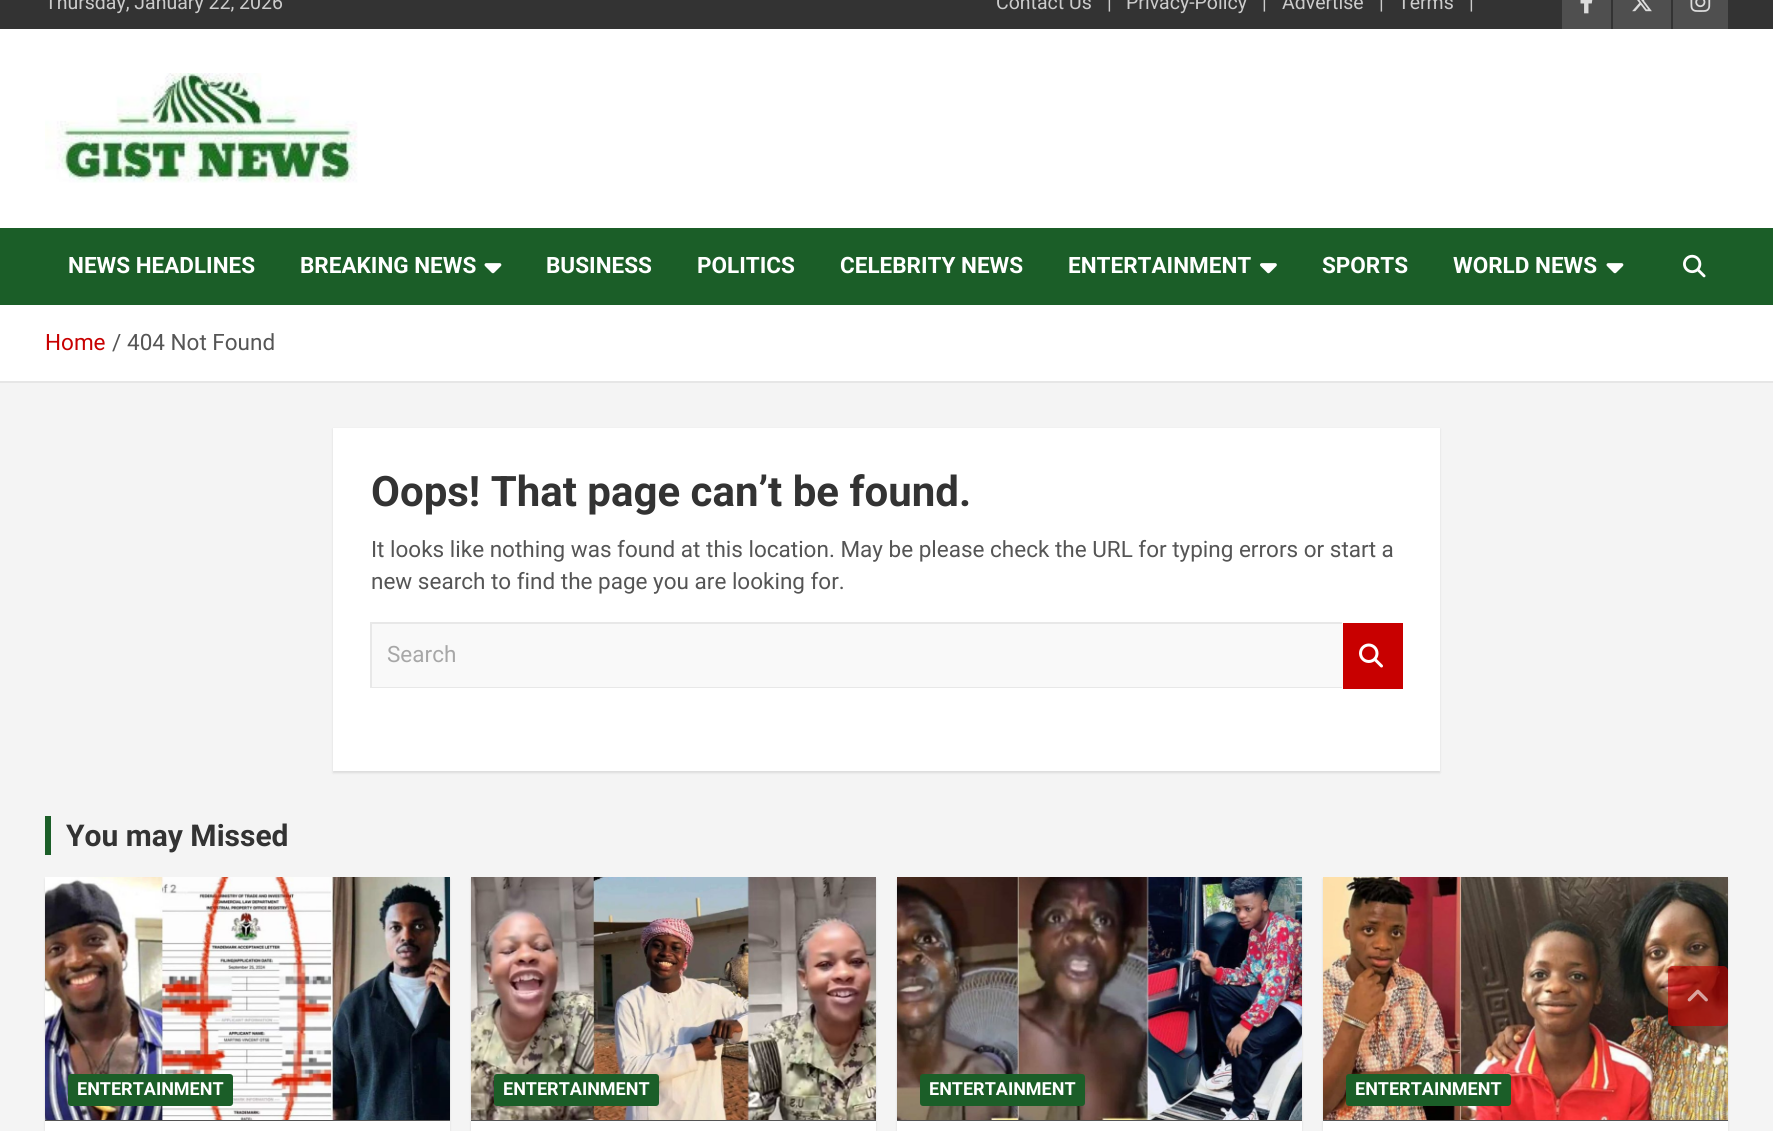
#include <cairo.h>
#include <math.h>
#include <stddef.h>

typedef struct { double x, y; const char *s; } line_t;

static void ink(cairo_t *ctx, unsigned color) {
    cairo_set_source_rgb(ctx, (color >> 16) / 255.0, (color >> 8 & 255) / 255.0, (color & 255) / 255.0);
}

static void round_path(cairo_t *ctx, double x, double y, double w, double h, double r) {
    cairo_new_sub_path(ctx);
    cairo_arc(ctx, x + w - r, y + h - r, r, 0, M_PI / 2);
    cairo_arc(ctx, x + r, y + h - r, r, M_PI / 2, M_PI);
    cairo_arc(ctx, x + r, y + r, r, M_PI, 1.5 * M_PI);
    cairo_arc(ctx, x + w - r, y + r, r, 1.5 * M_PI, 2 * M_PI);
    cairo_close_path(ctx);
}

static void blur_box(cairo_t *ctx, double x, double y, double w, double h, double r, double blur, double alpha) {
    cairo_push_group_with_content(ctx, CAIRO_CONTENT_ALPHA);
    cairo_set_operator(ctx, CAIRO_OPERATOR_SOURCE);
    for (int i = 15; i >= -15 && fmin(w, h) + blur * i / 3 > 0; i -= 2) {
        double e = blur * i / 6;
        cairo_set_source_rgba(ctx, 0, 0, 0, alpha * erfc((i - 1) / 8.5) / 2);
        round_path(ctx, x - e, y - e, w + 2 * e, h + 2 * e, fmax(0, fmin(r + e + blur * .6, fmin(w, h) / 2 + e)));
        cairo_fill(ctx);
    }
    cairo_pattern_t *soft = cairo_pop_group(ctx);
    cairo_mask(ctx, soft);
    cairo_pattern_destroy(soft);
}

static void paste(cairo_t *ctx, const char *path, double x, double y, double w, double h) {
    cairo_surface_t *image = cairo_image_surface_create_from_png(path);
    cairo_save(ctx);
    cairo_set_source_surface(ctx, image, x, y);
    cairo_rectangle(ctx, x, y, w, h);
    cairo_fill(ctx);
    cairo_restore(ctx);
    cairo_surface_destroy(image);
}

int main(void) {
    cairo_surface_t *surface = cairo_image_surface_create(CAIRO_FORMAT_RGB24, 1773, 1131);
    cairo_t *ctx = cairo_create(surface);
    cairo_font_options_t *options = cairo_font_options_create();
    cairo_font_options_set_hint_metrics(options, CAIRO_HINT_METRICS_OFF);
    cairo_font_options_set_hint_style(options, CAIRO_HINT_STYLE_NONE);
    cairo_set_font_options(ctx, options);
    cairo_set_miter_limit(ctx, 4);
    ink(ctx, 0xF4F4F4);
    cairo_paint(ctx);
    ink(ctx, 0x333333);
    cairo_rectangle(ctx, 0, 0, 1773, 29);
    cairo_fill(ctx);
    cairo_select_font_face(ctx, "Roboto", CAIRO_FONT_SLANT_NORMAL, CAIRO_FONT_WEIGHT_NORMAL);
    cairo_set_font_size(ctx, 19.5);
    ink(ctx, 0xCCCCCC);
    {
        static const line_t items[] = {
            {45, 9, "Thursday, January 22, 2026"},
            {996, 9, "Contact Us"},
            {1107, 9, "|"},
            {1126, 9, "Privacy-Policy"},
            {1262, 9, "|"},
            {1282, 9, "Advertise"},
            {1379, 9, "|"},
            {1398, 9, "Terms"},
            {1469, 9, "|"},
        };
        for (size_t i = 0; i < sizeof items / sizeof *items; i++) {
            cairo_move_to(ctx, items[i].x, items[i].y);
            cairo_show_text(ctx, items[i].s);
        }
    }
    ink(ctx, 0x4F4F4F);
    cairo_rectangle(ctx, 1562, 0, 49, 29);
    cairo_fill(ctx);
    paste(ctx, "media/1.png", 1580, 0, 13, 14);
    cairo_rectangle(ctx, 1613, 0, 58, 29);
    cairo_fill(ctx);
    paste(ctx, "media/2.png", 1632, 0, 20, 12);
    cairo_rectangle(ctx, 1673, 0, 55, 29);
    cairo_fill(ctx);
    paste(ctx, "media/3.png", 1690, 0, 21, 12);
    ink(ctx, 0xFFFFFF);
    cairo_rectangle(ctx, 0, 29, 1773, 199);
    cairo_fill(ctx);
    paste(ctx, "media/4.png", 45, 73, 313, 110);
    ink(ctx, 0x1B5E28);
    cairo_rectangle(ctx, 0, 228, 1773, 77);
    cairo_fill(ctx);
    cairo_select_font_face(ctx, "Roboto", CAIRO_FONT_SLANT_NORMAL, CAIRO_FONT_WEIGHT_BOLD);
    cairo_set_font_size(ctx, 22.5);
    ink(ctx, 0xFFFFFF);
    cairo_move_to(ctx, 68, 273);
    cairo_show_text(ctx, "NEWS HEADLINES");
    cairo_move_to(ctx, 300, 273);
    cairo_show_text(ctx, "BREAKING NEWS");
    paste(ctx, "media/5.png", 484, 263, 18, 11);
    {
        static const line_t items[] = {
            {546, 273, "BUSINESS"},
            {697, 273, "POLITICS"},
            {840, 273, "CELEBRITY NEWS"},
            {1068, 273, "ENTERTAINMENT"},
        };
        for (size_t i = 0; i < sizeof items / sizeof *items; i++) {
            cairo_move_to(ctx, items[i].x, items[i].y);
            cairo_show_text(ctx, items[i].s);
        }
    }
    paste(ctx, "media/6.png", 1260, 263, 17, 11);
    cairo_move_to(ctx, 1322, 273);
    cairo_show_text(ctx, "SPORTS");
    cairo_move_to(ctx, 1453, 273);
    cairo_show_text(ctx, "WORLD NEWS");
    paste(ctx, "media/5.png", 1606, 263, 18, 11);
    paste(ctx, "media/7.png", 1683, 254, 23, 24);
    cairo_rectangle(ctx, 0, 305, 1773, 76);
    cairo_fill(ctx);
    ink(ctx, 0xE6E6E6);
    cairo_rectangle(ctx, 0, 381, 1773, 2);
    cairo_fill(ctx);
    cairo_select_font_face(ctx, "Roboto", CAIRO_FONT_SLANT_NORMAL, CAIRO_FONT_WEIGHT_NORMAL);
    ink(ctx, 0xC80000);
    cairo_move_to(ctx, 45, 350);
    cairo_show_text(ctx, "Home");
    ink(ctx, 0x555555);
    cairo_move_to(ctx, 112, 350);
    cairo_show_text(ctx, "/");
    cairo_move_to(ctx, 127, 350);
    cairo_show_text(ctx, "404 Not Found");
    ink(ctx, 0x000000);
    blur_box(ctx, 333, 429, 1107, 344, 0, 1, 0.1);
    ink(ctx, 0xFFFFFF);
    cairo_rectangle(ctx, 333, 428, 1107, 343);
    cairo_fill(ctx);
    cairo_select_font_face(ctx, "Roboto", CAIRO_FONT_SLANT_NORMAL, CAIRO_FONT_WEIGHT_BOLD);
    cairo_set_font_size(ctx, 42);
    ink(ctx, 0x333333);
    cairo_move_to(ctx, 371, 506);
    cairo_show_text(ctx, "Oops! That page can’t be found.");
    cairo_select_font_face(ctx, "Roboto", CAIRO_FONT_SLANT_NORMAL, CAIRO_FONT_WEIGHT_NORMAL);
    cairo_set_font_size(ctx, 22.5);
    ink(ctx, 0x555555);
    cairo_move_to(ctx, 371, 557);
    cairo_show_text(ctx, "It looks like nothing was found at this location. May be please check the URL for typing errors or start a");
    cairo_move_to(ctx, 371, 589);
    cairo_show_text(ctx, "new search to find the page you are looking for.");
    ink(ctx, 0xF9F9F9);
    cairo_rectangle(ctx, 372, 624, 971, 63);
    cairo_fill(ctx);
    ink(ctx, 0xE8E8E8);
    cairo_new_path(ctx);
    cairo_move_to(ctx, 370, 622);
    cairo_line_to(ctx, 1342, 622);
    cairo_line_to(ctx, 1342, 624);
    cairo_line_to(ctx, 372, 624);
    cairo_close_path(ctx);
    cairo_fill(ctx);
    cairo_new_path(ctx);
    cairo_move_to(ctx, 1342, 688);
    cairo_line_to(ctx, 370, 688);
    cairo_line_to(ctx, 372, 687);
    cairo_line_to(ctx, 1342, 687);
    cairo_close_path(ctx);
    cairo_fill(ctx);
    cairo_set_source_rgba(ctx, 0, 0, 0, 0.09);
    cairo_new_path(ctx);
    cairo_move_to(ctx, 370, 688);
    cairo_line_to(ctx, 370, 622);
    cairo_line_to(ctx, 372, 624);
    cairo_line_to(ctx, 372, 687);
    cairo_close_path(ctx);
    cairo_fill(ctx);
    ink(ctx, 0xA7A7A7);
    cairo_move_to(ctx, 387, 662);
    cairo_show_text(ctx, "Search");
    ink(ctx, 0xC80000);
    cairo_rectangle(ctx, 1343, 623, 60, 66);
    cairo_fill(ctx);
    paste(ctx, "media/8.png", 1359, 643, 24, 25);
    ink(ctx, 0x1B5E28);
    cairo_rectangle(ctx, 45, 816, 6, 39);
    cairo_fill(ctx);
    cairo_select_font_face(ctx, "Roboto", CAIRO_FONT_SLANT_NORMAL, CAIRO_FONT_WEIGHT_BOLD);
    cairo_set_font_size(ctx, 30);
    ink(ctx, 0x333333);
    cairo_move_to(ctx, 66, 846);
    cairo_show_text(ctx, "You may Missed");
    ink(ctx, 0x000000);
    blur_box(ctx, 45, 879, 405, 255, 0, 1, 0.1);
    ink(ctx, 0xFFFFFF);
    cairo_rectangle(ctx, 45, 1121, 405, 10);
    cairo_fill(ctx);
    ink(ctx, 0x555555);
    cairo_rectangle(ctx, 45, 1120, 405, 1);
    cairo_fill(ctx);
    paste(ctx, "media/9.png", 45, 877, 405, 243);
    ink(ctx, 0x1B5E28);
    round_path(ctx, 68, 1074, 165, 32, 3);
    cairo_fill(ctx);
    cairo_set_font_size(ctx, 18);
    ink(ctx, 0xFFFFFF);
    cairo_move_to(ctx, 77, 1095);
    cairo_show_text(ctx, "ENTERTAINMENT");
    ink(ctx, 0x000000);
    blur_box(ctx, 471, 879, 405, 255, 0, 1, 0.1);
    ink(ctx, 0xFFFFFF);
    cairo_rectangle(ctx, 471, 1121, 405, 10);
    cairo_fill(ctx);
    ink(ctx, 0x555555);
    cairo_rectangle(ctx, 471, 1120, 405, 1);
    cairo_fill(ctx);
    paste(ctx, "media/10.png", 471, 877, 405, 243);
    ink(ctx, 0x1B5E28);
    round_path(ctx, 494, 1074, 165, 32, 3);
    cairo_fill(ctx);
    ink(ctx, 0xFFFFFF);
    cairo_move_to(ctx, 503, 1095);
    cairo_show_text(ctx, "ENTERTAINMENT");
    ink(ctx, 0x000000);
    blur_box(ctx, 897, 879, 405, 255, 0, 1, 0.1);
    ink(ctx, 0xFFFFFF);
    cairo_rectangle(ctx, 897, 1121, 405, 10);
    cairo_fill(ctx);
    ink(ctx, 0x555555);
    cairo_rectangle(ctx, 897, 1120, 405, 1);
    cairo_fill(ctx);
    paste(ctx, "media/11.png", 897, 877, 405, 243);
    ink(ctx, 0x1B5E28);
    round_path(ctx, 920, 1074, 165, 32, 3);
    cairo_fill(ctx);
    ink(ctx, 0xFFFFFF);
    cairo_move_to(ctx, 929, 1095);
    cairo_show_text(ctx, "ENTERTAINMENT");
    ink(ctx, 0x000000);
    blur_box(ctx, 1323, 879, 405, 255, 0, 1, 0.1);
    ink(ctx, 0xFFFFFF);
    cairo_rectangle(ctx, 1323, 1121, 405, 10);
    cairo_fill(ctx);
    ink(ctx, 0x555555);
    cairo_rectangle(ctx, 1323, 1120, 405, 1);
    cairo_fill(ctx);
    paste(ctx, "media/12.png", 1323, 877, 405, 243);
    ink(ctx, 0x1B5E28);
    round_path(ctx, 1346, 1074, 165, 32, 3);
    cairo_fill(ctx);
    ink(ctx, 0xFFFFFF);
    cairo_move_to(ctx, 1355, 1095);
    cairo_show_text(ctx, "ENTERTAINMENT");
    cairo_set_source_rgba(ctx, 0.784, 0, 0, 0.6);
    round_path(ctx, 1668, 966, 60, 60, 5);
    cairo_fill(ctx);
    paste(ctx, "media/13.png", 1687, 989, 21, 13);
    cairo_surface_write_to_png(surface, "image.png");
    cairo_font_options_destroy(options);
    cairo_destroy(ctx);
    cairo_surface_destroy(surface);
    return 0;
}
